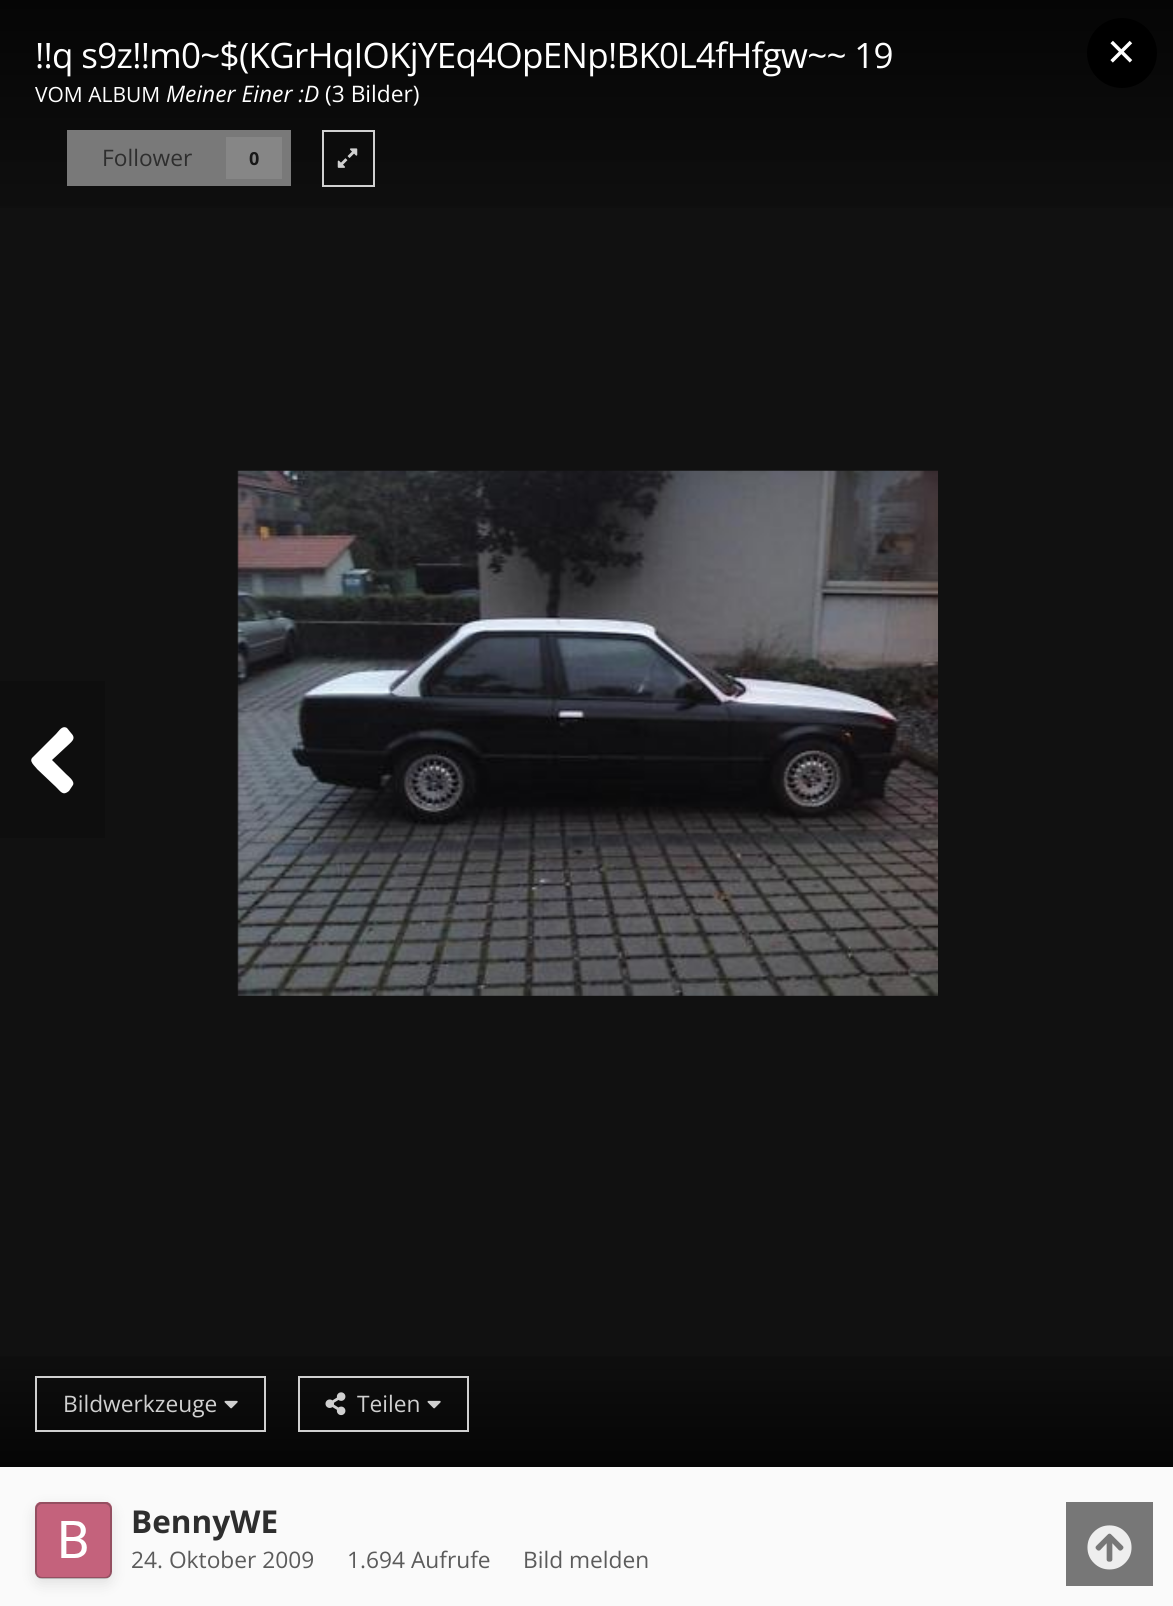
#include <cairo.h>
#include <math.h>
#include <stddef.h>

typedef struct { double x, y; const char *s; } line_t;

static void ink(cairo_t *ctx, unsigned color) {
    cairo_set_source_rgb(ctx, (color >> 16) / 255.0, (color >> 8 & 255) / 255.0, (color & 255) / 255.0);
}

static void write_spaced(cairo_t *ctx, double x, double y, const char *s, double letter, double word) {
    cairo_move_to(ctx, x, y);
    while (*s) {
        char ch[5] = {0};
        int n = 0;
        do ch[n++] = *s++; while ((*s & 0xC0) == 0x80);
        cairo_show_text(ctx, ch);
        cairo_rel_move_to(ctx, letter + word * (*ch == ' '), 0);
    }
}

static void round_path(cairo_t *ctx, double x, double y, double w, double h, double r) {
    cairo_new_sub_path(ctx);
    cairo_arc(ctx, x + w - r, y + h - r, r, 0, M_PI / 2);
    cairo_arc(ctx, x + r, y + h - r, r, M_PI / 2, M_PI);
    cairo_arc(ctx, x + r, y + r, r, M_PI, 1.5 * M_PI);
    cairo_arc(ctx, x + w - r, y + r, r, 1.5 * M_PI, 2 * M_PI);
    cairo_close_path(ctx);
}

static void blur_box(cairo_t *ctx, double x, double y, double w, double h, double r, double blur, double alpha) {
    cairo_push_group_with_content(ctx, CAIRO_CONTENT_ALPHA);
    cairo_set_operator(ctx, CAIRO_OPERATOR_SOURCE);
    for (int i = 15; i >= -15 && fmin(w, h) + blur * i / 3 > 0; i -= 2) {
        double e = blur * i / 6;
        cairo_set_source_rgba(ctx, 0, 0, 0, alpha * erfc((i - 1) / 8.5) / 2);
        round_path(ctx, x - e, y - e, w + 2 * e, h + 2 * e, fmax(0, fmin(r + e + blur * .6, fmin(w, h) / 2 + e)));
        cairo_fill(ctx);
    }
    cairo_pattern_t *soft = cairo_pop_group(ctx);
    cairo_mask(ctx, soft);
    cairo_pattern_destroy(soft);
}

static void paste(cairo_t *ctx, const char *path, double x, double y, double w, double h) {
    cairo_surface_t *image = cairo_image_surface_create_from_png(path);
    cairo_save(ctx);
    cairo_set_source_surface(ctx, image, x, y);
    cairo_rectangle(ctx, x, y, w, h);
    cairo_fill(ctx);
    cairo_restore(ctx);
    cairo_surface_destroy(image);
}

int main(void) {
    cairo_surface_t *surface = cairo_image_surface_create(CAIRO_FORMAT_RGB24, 1173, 1606);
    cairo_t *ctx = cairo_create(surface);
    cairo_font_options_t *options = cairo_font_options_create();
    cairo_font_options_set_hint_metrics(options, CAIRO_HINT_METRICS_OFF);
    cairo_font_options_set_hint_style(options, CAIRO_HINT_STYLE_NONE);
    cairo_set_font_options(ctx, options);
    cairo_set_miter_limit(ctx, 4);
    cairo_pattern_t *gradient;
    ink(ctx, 0x111111);
    cairo_paint(ctx);
    gradient = cairo_pattern_create_linear(587, 0, 587, 263);
    cairo_pattern_add_color_stop_rgba(gradient, 0, 0.02, 0.02, 0.02, 1);
    cairo_pattern_add_color_stop_rgba(gradient, 1, 0.067, 0.067, 0.067, 1);
    cairo_set_source(ctx, gradient);
    cairo_pattern_destroy(gradient);
    cairo_rectangle(ctx, 0, 0, 1173, 208);
    cairo_fill(ctx);
    cairo_select_font_face(ctx, "Open Sans", CAIRO_FONT_SLANT_NORMAL, CAIRO_FONT_WEIGHT_NORMAL);
    cairo_set_font_size(ctx, 35);
    ink(ctx, 0xFFFFFF);
    write_spaced(ctx, 35, 68, "!!q s9z!!m0~$(KGrHqIOKjYEq4OpENp!BK0L4fHfgw~~ 19", -0.7, 0);
    cairo_set_font_size(ctx, 21);
    cairo_move_to(ctx, 35, 102);
    cairo_show_text(ctx, "VOM ALBUM");
    cairo_select_font_face(ctx, "Open Sans", CAIRO_FONT_SLANT_ITALIC, CAIRO_FONT_WEIGHT_NORMAL);
    cairo_set_font_size(ctx, 22.75);
    cairo_move_to(ctx, 166, 102);
    cairo_show_text(ctx, "Meiner Einer :D");
    cairo_select_font_face(ctx, "Open Sans", CAIRO_FONT_SLANT_NORMAL, CAIRO_FONT_WEIGHT_NORMAL);
    cairo_move_to(ctx, 325, 102);
    cairo_show_text(ctx, "(3 Bilder)");
    ink(ctx, 0x797979);
    cairo_rectangle(ctx, 67, 130, 224, 56);
    cairo_fill(ctx);
    ink(ctx, 0x2E2E2E);
    cairo_move_to(ctx, 102, 166);
    cairo_show_text(ctx, "Follower");
    ink(ctx, 0x868686);
    cairo_rectangle(ctx, 226, 137, 56, 42);
    cairo_fill(ctx);
    cairo_select_font_face(ctx, "Open Sans", CAIRO_FONT_SLANT_NORMAL, CAIRO_FONT_WEIGHT_BOLD);
    cairo_set_font_size(ctx, 18);
    ink(ctx, 0x171717);
    cairo_move_to(ctx, 249, 165);
    cairo_show_text(ctx, "0");
    cairo_rectangle(ctx, 323, 131, 51, 55);
    ink(ctx, 0xD0D0D0);
    cairo_stroke(ctx);
    paste(ctx, "media/1.png", 337, 148, 21, 20);
    gradient = cairo_pattern_create_linear(587, 1327, 587, 1467);
    cairo_pattern_add_color_stop_rgba(gradient, 0, 0.067, 0.067, 0.067, 1);
    cairo_pattern_add_color_stop_rgba(gradient, 1, 0.02, 0.02, 0.02, 1);
    cairo_set_source(ctx, gradient);
    cairo_pattern_destroy(gradient);
    cairo_rectangle(ctx, 0, 1356, 1173, 111);
    cairo_fill(ctx);
    cairo_rectangle(ctx, 36, 1377, 229, 54);
    ink(ctx, 0xD0D0D0);
    cairo_stroke(ctx);
    cairo_select_font_face(ctx, "Open Sans", CAIRO_FONT_SLANT_NORMAL, CAIRO_FONT_WEIGHT_NORMAL);
    cairo_set_font_size(ctx, 22.75);
    cairo_move_to(ctx, 63, 1412);
    cairo_show_text(ctx, "Bildwerkzeuge");
    paste(ctx, "media/2.png", 224, 1400, 14, 9);
    cairo_rectangle(ctx, 299, 1377, 169, 54);
    cairo_stroke(ctx);
    paste(ctx, "media/3.png", 325, 1392, 21, 24);
    cairo_move_to(ctx, 357, 1412);
    cairo_show_text(ctx, "Teilen");
    paste(ctx, "media/2.png", 427, 1400, 14, 9);
    ink(ctx, 0x0E0E0E);
    cairo_rectangle(ctx, 0, 681, 105, 157);
    cairo_fill(ctx);
    ink(ctx, 0xFFFFFF);
    cairo_new_path(ctx);
    cairo_move_to(ctx, 33, 757);
    cairo_line_to(ctx, 56, 734);
    cairo_curve_to(ctx, 59, 731, 62, 725, 67, 728);
    cairo_line_to(ctx, 71, 733);
    cairo_curve_to(ctx, 77, 739, 71, 742, 66, 747);
    cairo_line_to(ctx, 52, 760);
    cairo_line_to(ctx, 66, 774);
    cairo_curve_to(ctx, 68, 776, 75, 781, 73, 785);
    cairo_line_to(ctx, 69, 791);
    cairo_curve_to(ctx, 63, 796, 61, 792, 56, 787);
    cairo_line_to(ctx, 37, 769);
    cairo_curve_to(ctx, 35, 766, 28, 761, 33, 757);
    cairo_close_path(ctx);
    cairo_fill(ctx);
    ink(ctx, 0x222222);
    cairo_rectangle(ctx, 238, 471, 700, 525);
    cairo_fill(ctx);
    paste(ctx, "media/4.png", 237, 470, 701, 526);
    ink(ctx, 0xFAFAFA);
    cairo_rectangle(ctx, 0, 1467, 1173, 139);
    cairo_fill(ctx);
    ink(ctx, 0xFFFFFF);
    round_path(ctx, 35, 1502, 77, 77, 7);
    cairo_fill(ctx);
    paste(ctx, "media/5.png", 35, 1502, 77, 77);
    cairo_save(ctx);
    cairo_set_fill_rule(ctx, CAIRO_FILL_RULE_EVEN_ODD);
    cairo_new_path(ctx);
    cairo_move_to(ctx, 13, 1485);
    cairo_line_to(ctx, 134, 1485);
    cairo_line_to(ctx, 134, 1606);
    cairo_line_to(ctx, 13, 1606);
    cairo_close_path(ctx);
    cairo_move_to(ctx, 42, 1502);
    cairo_line_to(ctx, 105, 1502);
    cairo_curve_to(ctx, 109, 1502, 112, 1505, 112, 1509);
    cairo_line_to(ctx, 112, 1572);
    cairo_curve_to(ctx, 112, 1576, 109, 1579, 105, 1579);
    cairo_line_to(ctx, 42, 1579);
    cairo_curve_to(ctx, 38, 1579, 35, 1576, 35, 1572);
    cairo_line_to(ctx, 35, 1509);
    cairo_curve_to(ctx, 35, 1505, 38, 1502, 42, 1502);
    cairo_close_path(ctx);
    cairo_clip(ctx);
    ink(ctx, 0x000000);
    blur_box(ctx, 35, 1507, 77, 77, 7, 7, 0.1);
    cairo_restore(ctx);
    round_path(ctx, 36, 1503, 75, 75, 6);
    cairo_set_source_rgba(ctx, 0.133, 0.133, 0.133, 0.3);
    cairo_stroke(ctx);
    cairo_select_font_face(ctx, "Open Sans", CAIRO_FONT_SLANT_NORMAL, CAIRO_FONT_WEIGHT_BOLD);
    cairo_set_font_size(ctx, 31.5);
    ink(ctx, 0x2E2E2E);
    cairo_move_to(ctx, 131, 1533);
    cairo_show_text(ctx, "BennyWE");
    cairo_select_font_face(ctx, "Open Sans", CAIRO_FONT_SLANT_NORMAL, CAIRO_FONT_WEIGHT_NORMAL);
    cairo_set_font_size(ctx, 22.75);
    ink(ctx, 0x5B5B5B);
    {
        static const line_t items[] = {
            {131, 1568, "24. Oktober 2009"},
            {347, 1568, "1.694 Aufrufe"},
            {523, 1568, "Bild melden"},
        };
        for (size_t i = 0; i < sizeof items / sizeof *items; i++) {
            cairo_move_to(ctx, items[i].x, items[i].y);
            cairo_show_text(ctx, items[i].s);
        }
    }
    ink(ctx, 0x000000);
    cairo_new_path(ctx);
    cairo_arc(ctx, 1122, 53, 35, 0, 2 * M_PI);
    cairo_fill(ctx);
    cairo_select_font_face(ctx, "Liberation Sans", CAIRO_FONT_SLANT_NORMAL, CAIRO_FONT_WEIGHT_NORMAL);
    cairo_set_font_size(ctx, 49);
    ink(ctx, 0xFFFFFF);
    cairo_move_to(ctx, 1107, 68);
    cairo_show_text(ctx, "×");
    ink(ctx, 0x777777);
    cairo_rectangle(ctx, 1066, 1502, 87, 84);
    cairo_fill(ctx);
    paste(ctx, "media/6.png", 1087, 1525, 45, 45);
    cairo_surface_write_to_png(surface, "image.png");
    cairo_font_options_destroy(options);
    cairo_destroy(ctx);
    cairo_surface_destroy(surface);
    return 0;
}
